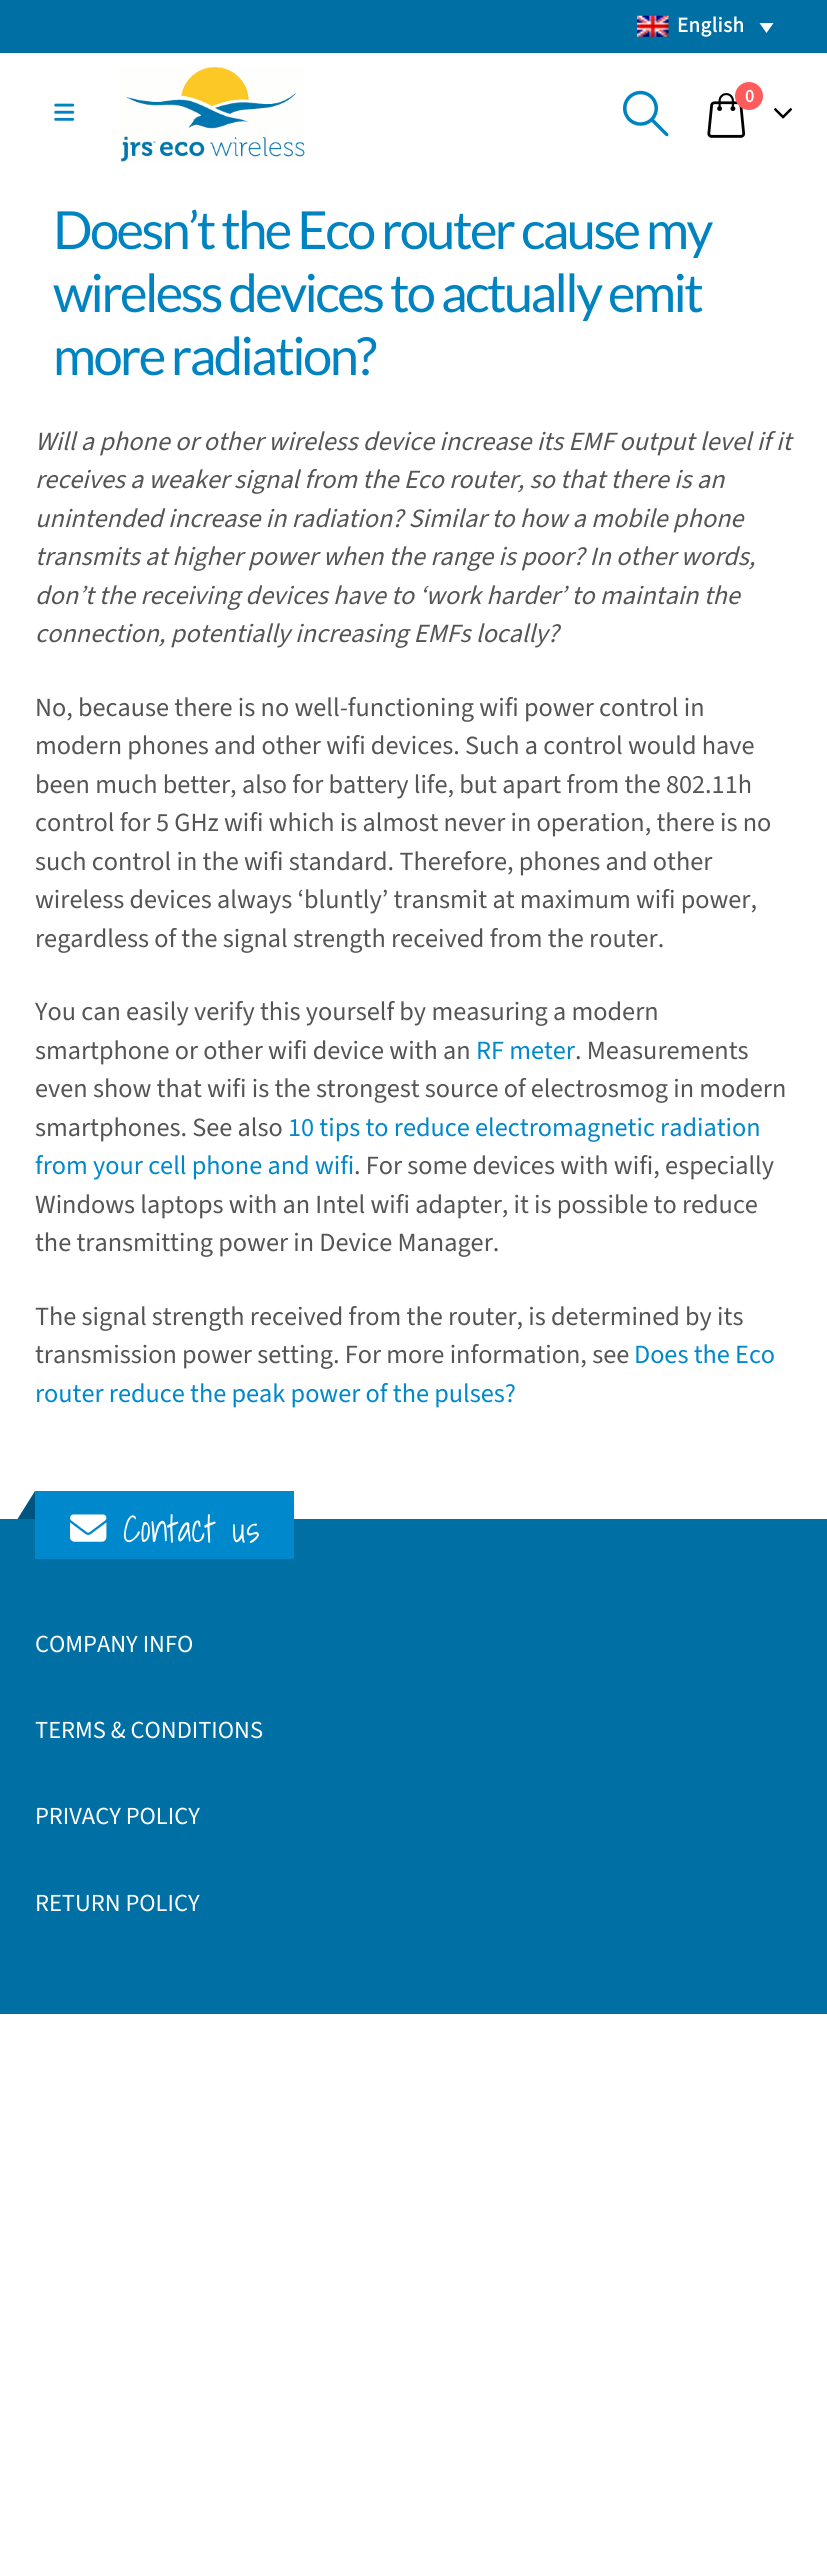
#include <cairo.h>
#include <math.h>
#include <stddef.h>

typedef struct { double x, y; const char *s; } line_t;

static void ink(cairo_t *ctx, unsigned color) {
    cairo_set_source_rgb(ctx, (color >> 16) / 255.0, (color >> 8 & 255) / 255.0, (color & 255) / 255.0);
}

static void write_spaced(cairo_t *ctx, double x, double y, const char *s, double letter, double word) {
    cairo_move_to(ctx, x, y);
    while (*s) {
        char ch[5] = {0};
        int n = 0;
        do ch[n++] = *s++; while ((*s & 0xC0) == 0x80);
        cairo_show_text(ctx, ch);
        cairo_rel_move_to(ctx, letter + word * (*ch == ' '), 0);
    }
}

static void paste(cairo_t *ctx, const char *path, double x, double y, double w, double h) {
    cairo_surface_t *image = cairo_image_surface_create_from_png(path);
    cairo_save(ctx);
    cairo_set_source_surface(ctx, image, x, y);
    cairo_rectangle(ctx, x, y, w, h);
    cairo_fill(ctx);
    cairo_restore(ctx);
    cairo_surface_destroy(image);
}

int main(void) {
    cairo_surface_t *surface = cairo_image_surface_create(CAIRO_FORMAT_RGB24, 827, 2562);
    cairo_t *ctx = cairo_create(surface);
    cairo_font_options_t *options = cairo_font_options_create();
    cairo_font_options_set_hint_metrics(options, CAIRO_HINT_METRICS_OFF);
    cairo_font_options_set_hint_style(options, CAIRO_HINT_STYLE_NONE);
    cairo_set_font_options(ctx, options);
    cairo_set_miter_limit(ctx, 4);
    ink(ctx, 0xFFFFFF);
    cairo_paint(ctx);
    ink(ctx, 0x006FA4);
    cairo_rectangle(ctx, 0, 0, 827, 53);
    cairo_fill(ctx);
    paste(ctx, "media/1.png", 637, 15, 32, 22);
    cairo_select_font_face(ctx, "Source Sans 3", CAIRO_FONT_SLANT_NORMAL, CAIRO_FONT_WEIGHT_BOLD);
    cairo_set_font_size(ctx, 21);
    ink(ctx, 0xFFFFFF);
    write_spaced(ctx, 677, 32, "English", 0.5, 0);
    cairo_new_path(ctx);
    cairo_move_to(ctx, 759.5, 23);
    cairo_line_to(ctx, 773.5, 23);
    cairo_line_to(ctx, 766.5, 33);
    cairo_close_path(ctx);
    cairo_fill(ctx);
    paste(ctx, "media/2.png", 54, 103, 21, 18);
    paste(ctx, "media/3.png", 120, 67, 185, 95);
    paste(ctx, "media/4.png", 623, 90, 46, 47);
    paste(ctx, "media/5.png", 707, 93, 39, 45);
    ink(ctx, 0xFF5B5B);
    cairo_arc(ctx, 749, 96, 14, 0, 2 * M_PI);
    cairo_fill(ctx);
    cairo_set_font_size(ctx, 18);
    ink(ctx, 0xFFFFFF);
    cairo_move_to(ctx, 745, 102);
    cairo_show_text(ctx, "0");
    paste(ctx, "media/6.png", 773, 108, 20, 11);
    cairo_select_font_face(ctx, "Lato", CAIRO_FONT_SLANT_NORMAL, CAIRO_FONT_WEIGHT_NORMAL);
    cairo_set_font_size(ctx, 52.5);
    ink(ctx, 0x0083C1);
    {
        static const line_t items[] = {
            {53, 249, "Doesn’t the Eco router cause my"},
            {53, 312, "wireless devices to actually emit"},
            {53, 375, "more radiation?"},
        };
        for (size_t i = 0; i < sizeof items / sizeof *items; i++) {
            write_spaced(ctx, items[i].x, items[i].y, items[i].s, -2.6, 0);
        }
    }
    cairo_select_font_face(ctx, "Source Sans 3", CAIRO_FONT_SLANT_ITALIC, CAIRO_FONT_WEIGHT_NORMAL);
    cairo_set_font_size(ctx, 26.25);
    ink(ctx, 0x555555);
    {
        static const line_t items[] = {
            {35, 450, "Will a phone or other wireless device increase its EMF output level if it"},
            {35, 488, "receives a weaker signal from the Eco router, so that there is an"},
            {35, 527, "unintended increase in radiation? Similar to how a mobile phone"},
            {35, 565, "transmits at higher power when the range is poor? In other words,"},
            {35, 604, "don’t the receiving devices have to ‘work harder’ to maintain the"},
            {35, 642, "connection, potentially increasing EMFs locally?"},
        };
        for (size_t i = 0; i < sizeof items / sizeof *items; i++) {
            cairo_move_to(ctx, items[i].x, items[i].y);
            cairo_show_text(ctx, items[i].s);
        }
    }
    cairo_select_font_face(ctx, "Source Sans 3", CAIRO_FONT_SLANT_NORMAL, CAIRO_FONT_WEIGHT_NORMAL);
    {
        static const line_t items[] = {
            {35, 716, "No, because there is no well-functioning wifi power control in"},
            {35, 754, "modern phones and other wifi devices. Such a control would have"},
            {35, 793, "been much better, also for battery life, but apart from the 802.11h"},
            {35, 831, "control for 5 GHz wifi which is almost never in operation, there is no"},
            {35, 870, "such control in the wifi standard. Therefore, phones and other"},
            {35, 908, "wireless devices always ‘bluntly’ transmit at maximum wifi power,"},
            {35, 947, "regardless of the signal strength received from the router."},
            {35, 1020, "You can easily verify this yourself by measuring a modern"},
            {35, 1059, "smartphone or other wifi device with an"},
        };
        for (size_t i = 0; i < sizeof items / sizeof *items; i++) {
            cairo_move_to(ctx, items[i].x, items[i].y);
            cairo_show_text(ctx, items[i].s);
        }
    }
    ink(ctx, 0x0088CC);
    cairo_move_to(ctx, 476, 1059);
    cairo_show_text(ctx, "RF meter");
    ink(ctx, 0x555555);
    {
        static const line_t items[] = {
            {575, 1059, ". Measurements"},
            {35, 1097, "even show that wifi is the strongest source of electrosmog in modern"},
            {35, 1136, "smartphones. See also"},
        };
        for (size_t i = 0; i < sizeof items / sizeof *items; i++) {
            cairo_move_to(ctx, items[i].x, items[i].y);
            cairo_show_text(ctx, items[i].s);
        }
    }
    ink(ctx, 0x0088CC);
    cairo_move_to(ctx, 288, 1136);
    cairo_show_text(ctx, "10 tips to reduce electromagnetic radiation");
    cairo_move_to(ctx, 35, 1174);
    cairo_show_text(ctx, "from your cell phone and wifi");
    ink(ctx, 0x555555);
    {
        static const line_t items[] = {
            {354, 1174, ". For some devices with wifi, especially"},
            {35, 1213, "Windows laptops with an Intel wifi adapter, it is possible to reduce"},
            {35, 1251, "the transmitting power in Device Manager."},
            {35, 1325, "The signal strength received from the router, is determined by its"},
            {35, 1363, "transmission power setting. For more information, see"},
        };
        for (size_t i = 0; i < sizeof items / sizeof *items; i++) {
            cairo_move_to(ctx, items[i].x, items[i].y);
            cairo_show_text(ctx, items[i].s);
        }
    }
    ink(ctx, 0x0088CC);
    cairo_move_to(ctx, 634, 1363);
    cairo_show_text(ctx, "Does the Eco");
    cairo_move_to(ctx, 35, 1402);
    cairo_show_text(ctx, "router reduce the peak power of the pulses?");
    ink(ctx, 0x006FA4);
    cairo_rectangle(ctx, 0, 1519, 827, 495);
    cairo_fill(ctx);
    ink(ctx, 0x0088CC);
    cairo_rectangle(ctx, 35, 1491, 259, 68);
    cairo_fill(ctx);
    ink(ctx, 0x005580);
    cairo_new_path(ctx);
    cairo_move_to(ctx, 35, 1491);
    cairo_line_to(ctx, 35, 1519);
    cairo_line_to(ctx, 17.5, 1519);
    cairo_close_path(ctx);
    cairo_fill(ctx);
    paste(ctx, "media/7.png", 70, 1514, 37, 28);
    cairo_select_font_face(ctx, "Shadows Into Light Light", CAIRO_FONT_SLANT_NORMAL, CAIRO_FONT_WEIGHT_NORMAL);
    cairo_set_font_size(ctx, 36.5);
    ink(ctx, 0xFFFFFF);
    cairo_move_to(ctx, 123, 1542);
    cairo_show_text(ctx, "Contact us");
    cairo_select_font_face(ctx, "Source Sans 3", CAIRO_FONT_SLANT_NORMAL, CAIRO_FONT_WEIGHT_NORMAL);
    cairo_set_font_size(ctx, 24.5);
    {
        static const line_t items[] = {
            {35, 1652, "COMPANY INFO"},
            {35, 1738, "TERMS & CONDITIONS"},
            {35, 1824, "PRIVACY POLICY"},
            {35, 1911, "RETURN POLICY"},
        };
        for (size_t i = 0; i < sizeof items / sizeof *items; i++) {
            cairo_move_to(ctx, items[i].x, items[i].y);
            cairo_show_text(ctx, items[i].s);
        }
    }
    cairo_surface_write_to_png(surface, "image.png");
    cairo_font_options_destroy(options);
    cairo_destroy(ctx);
    cairo_surface_destroy(surface);
    return 0;
}
